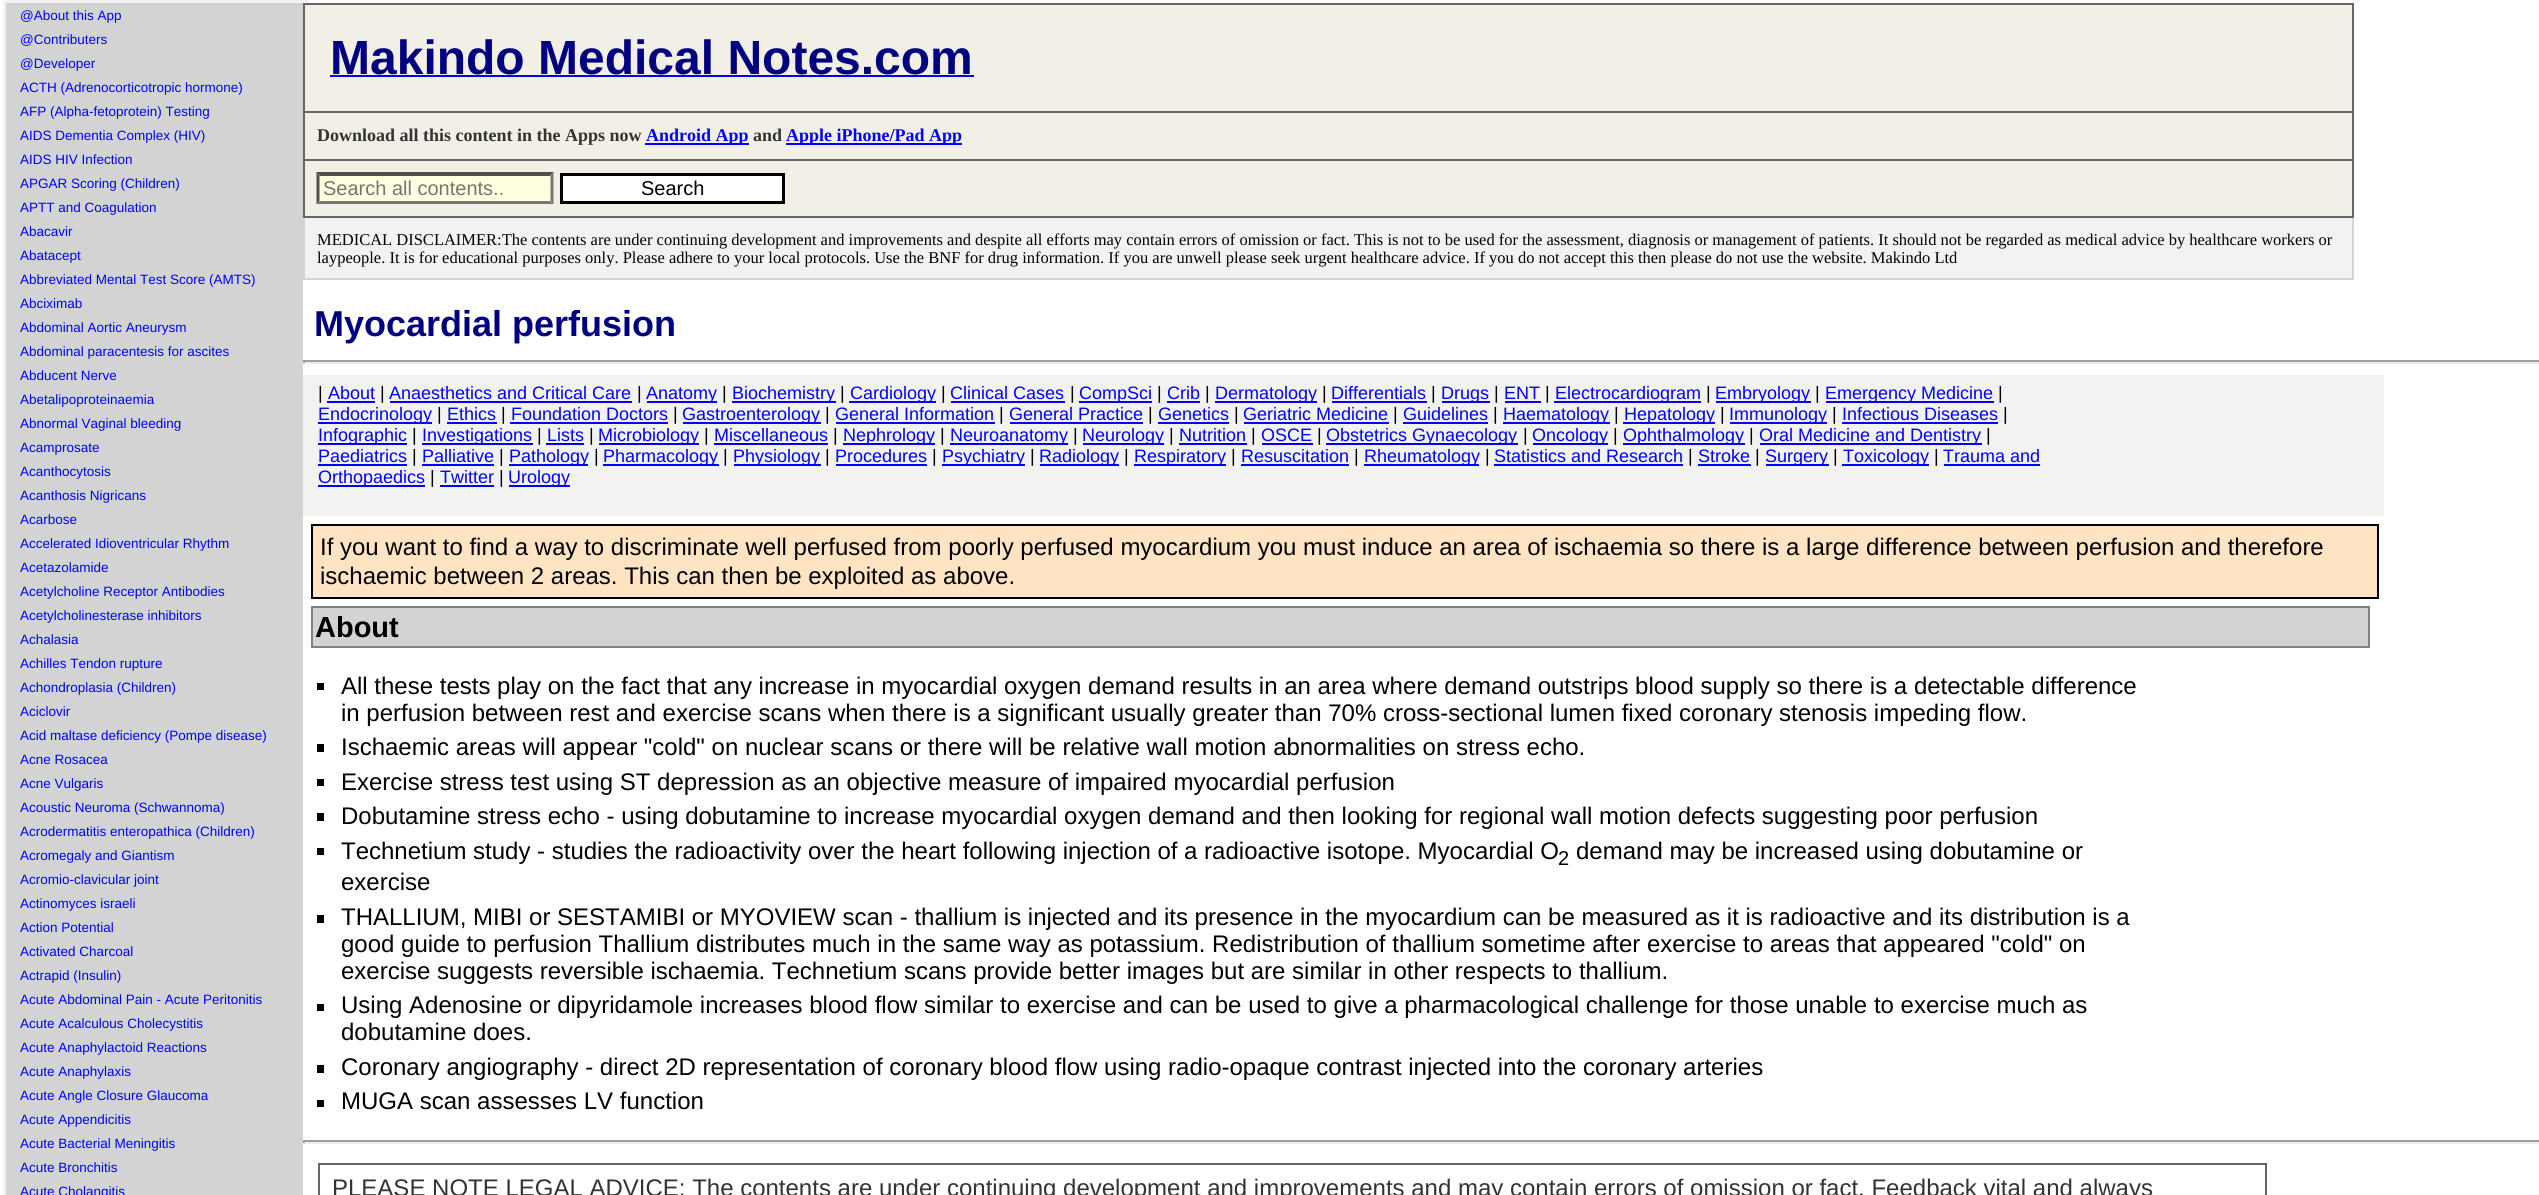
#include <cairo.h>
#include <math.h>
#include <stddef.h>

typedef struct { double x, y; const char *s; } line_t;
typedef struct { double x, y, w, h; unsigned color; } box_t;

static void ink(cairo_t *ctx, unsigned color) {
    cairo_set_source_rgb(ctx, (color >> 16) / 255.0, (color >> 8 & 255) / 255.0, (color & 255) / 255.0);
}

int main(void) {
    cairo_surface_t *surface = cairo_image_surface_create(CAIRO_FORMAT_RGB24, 2539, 1195);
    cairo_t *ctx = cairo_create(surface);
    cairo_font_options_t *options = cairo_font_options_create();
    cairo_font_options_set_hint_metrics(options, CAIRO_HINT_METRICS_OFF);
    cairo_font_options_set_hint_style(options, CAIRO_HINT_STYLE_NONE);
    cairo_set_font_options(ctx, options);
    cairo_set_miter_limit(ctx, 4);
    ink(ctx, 0xFFFFFF);
    cairo_paint(ctx);
    ink(ctx, 0xF2F2F1);
    cairo_rectangle(ctx, 3, 0, 306, 1195);
    cairo_fill(ctx);
    ink(ctx, 0xD3D3D3);
    cairo_rectangle(ctx, 6, 3, 297, 1192);
    cairo_fill(ctx);
    cairo_select_font_face(ctx, "Liberation Sans", CAIRO_FONT_SLANT_NORMAL, CAIRO_FONT_WEIGHT_NORMAL);
    cairo_set_font_size(ctx, 13.5);
    ink(ctx, 0x0000FF);
    {
        static const line_t items[] = {
            {20, 20, "@About this App"},
            {20, 44, "@Contributers"},
            {20, 68, "@Developer"},
            {20, 92, "ACTH (Adrenocorticotropic hormone)"},
            {20, 116, "AFP (Alpha-fetoprotein) Testing"},
            {20, 140, "AIDS Dementia Complex (HIV)"},
            {20, 164, "AIDS HIV Infection"},
            {20, 188, "APGAR Scoring (Children)"},
            {20, 212, "APTT and Coagulation"},
            {20, 236, "Abacavir"},
            {20, 260, "Abatacept"},
            {20, 284, "Abbreviated Mental Test Score (AMTS)"},
            {20, 308, "Abciximab"},
            {20, 332, "Abdominal Aortic Aneurysm"},
            {20, 356, "Abdominal paracentesis for ascites"},
            {20, 380, "Abducent Nerve"},
            {20, 404, "Abetalipoproteinaemia"},
            {20, 428, "Abnormal Vaginal bleeding"},
            {20, 452, "Acamprosate"},
            {20, 476, "Acanthocytosis"},
            {20, 500, "Acanthosis Nigricans"},
            {20, 524, "Acarbose"},
            {20, 548, "Accelerated Idioventricular Rhythm"},
            {20, 572, "Acetazolamide"},
            {20, 596, "Acetylcholine Receptor Antibodies"},
            {20, 620, "Acetylcholinesterase inhibitors"},
            {20, 644, "Achalasia"},
            {20, 668, "Achilles Tendon rupture"},
            {20, 692, "Achondroplasia (Children)"},
            {20, 716, "Aciclovir"},
            {20, 740, "Acid maltase deficiency (Pompe disease)"},
            {20, 764, "Acne Rosacea"},
            {20, 788, "Acne Vulgaris"},
            {20, 812, "Acoustic Neuroma (Schwannoma)"},
            {20, 836, "Acrodermatitis enteropathica (Children)"},
            {20, 860, "Acromegaly and Giantism"},
            {20, 884, "Acromio-clavicular joint"},
            {20, 908, "Actinomyces israeli"},
            {20, 932, "Action Potential"},
            {20, 956, "Activated Charcoal"},
            {20, 980, "Actrapid (Insulin)"},
            {20, 1004, "Acute Abdominal Pain - Acute Peritonitis"},
            {20, 1028, "Acute Acalculous Cholecystitis"},
            {20, 1052, "Acute Anaphylactoid Reactions"},
            {20, 1076, "Acute Anaphylaxis"},
            {20, 1100, "Acute Angle Closure Glaucoma"},
            {20, 1124, "Acute Appendicitis"},
            {20, 1148, "Acute Bacterial Meningitis"},
            {20, 1172, "Acute Bronchitis"},
            {20, 1196, "Acute Cholangitis"},
        };
        for (size_t i = 0; i < sizeof items / sizeof *items; i++) {
            cairo_move_to(ctx, items[i].x, items[i].y);
            cairo_show_text(ctx, items[i].s);
        }
    }
    {
        static const box_t items[] = {
            {303, 3, 6, 1192, 0xFFFFFF},
            {305, 5, 2047, 106, 0xF2F0E6},
            {303, 3, 2051, 2, 0x666666},
            {303, 111, 2051, 2, 0x666666},
            {303, 159, 2051, 2, 0x666666},
            {2352, 216, 2, 63, 0xD3D3D3},
            {2352, 159, 2, 59, 0x666666},
            {2352, 111, 2, 50, 0x666666},
            {2352, 3, 2, 110, 0x666666},
            {303, 278, 2051, 2, 0xD3D3D3},
            {303, 216, 2, 63, 0xD3D3D3},
            {303, 216, 2051, 2, 0x666666},
            {303, 159, 2, 59, 0x666666},
            {303, 111, 2, 50, 0x666666},
            {303, 3, 2, 110, 0x666666},
        };
        for (size_t i = 0; i < sizeof items / sizeof *items; i++) {
            ink(ctx, items[i].color);
            cairo_rectangle(ctx, items[i].x, items[i].y, items[i].w, items[i].h);
            cairo_fill(ctx);
        }
    }
    cairo_select_font_face(ctx, "Liberation Sans", CAIRO_FONT_SLANT_NORMAL, CAIRO_FONT_WEIGHT_BOLD);
    cairo_set_font_size(ctx, 48);
    ink(ctx, 0x000080);
    cairo_move_to(ctx, 330, 74);
    cairo_show_text(ctx, "Makindo Medical Notes.com");
    ink(ctx, 0x0000FF);
    cairo_rectangle(ctx, 330, 75, 644, 2);
    cairo_fill(ctx);
    ink(ctx, 0xF2F0E6);
    cairo_rectangle(ctx, 305, 113, 2047, 46);
    cairo_fill(ctx);
    cairo_select_font_face(ctx, "Liberation Serif", CAIRO_FONT_SLANT_NORMAL, CAIRO_FONT_WEIGHT_BOLD);
    cairo_set_font_size(ctx, 18);
    ink(ctx, 0x333333);
    cairo_move_to(ctx, 317, 141);
    cairo_show_text(ctx, "Download all this content in the Apps now");
    ink(ctx, 0x0000FF);
    cairo_rectangle(ctx, 645, 143, 104, 2);
    cairo_fill(ctx);
    cairo_move_to(ctx, 646, 141);
    cairo_show_text(ctx, "Android App");
    ink(ctx, 0x333333);
    cairo_move_to(ctx, 753, 141);
    cairo_show_text(ctx, "and");
    ink(ctx, 0x0000FF);
    cairo_rectangle(ctx, 786, 143, 176, 2);
    cairo_fill(ctx);
    cairo_move_to(ctx, 786, 141);
    cairo_show_text(ctx, "Apple iPhone/Pad App");
    ink(ctx, 0xF2F0E6);
    cairo_rectangle(ctx, 305, 161, 2047, 55);
    cairo_fill(ctx);
    ink(ctx, 0xFFFFE0);
    cairo_rectangle(ctx, 317, 173, 237, 31);
    cairo_fill(ctx);
    ink(ctx, 0x4F4F4F);
    cairo_new_path(ctx);
    cairo_move_to(ctx, 316, 172);
    cairo_line_to(ctx, 554, 172);
    cairo_line_to(ctx, 550, 176);
    cairo_line_to(ctx, 320, 176);
    cairo_close_path(ctx);
    cairo_fill(ctx);
    ink(ctx, 0x767676);
    cairo_new_path(ctx);
    cairo_move_to(ctx, 553.5, 172.5);
    cairo_line_to(ctx, 553.5, 204);
    cairo_line_to(ctx, 550.5, 201);
    cairo_line_to(ctx, 550.5, 175.5);
    cairo_close_path(ctx);
    cairo_fill(ctx);
    cairo_new_path(ctx);
    cairo_move_to(ctx, 554, 204);
    cairo_line_to(ctx, 316, 204);
    cairo_line_to(ctx, 320, 201);
    cairo_line_to(ctx, 550, 201);
    cairo_close_path(ctx);
    cairo_fill(ctx);
    ink(ctx, 0x4F4F4F);
    cairo_new_path(ctx);
    cairo_move_to(ctx, 316.5, 204);
    cairo_line_to(ctx, 316.5, 172.5);
    cairo_line_to(ctx, 319.5, 175.5);
    cairo_line_to(ctx, 319.5, 201);
    cairo_close_path(ctx);
    cairo_fill(ctx);
    cairo_select_font_face(ctx, "Liberation Sans", CAIRO_FONT_SLANT_NORMAL, CAIRO_FONT_WEIGHT_NORMAL);
    cairo_set_font_size(ctx, 20);
    ink(ctx, 0x757575);
    cairo_move_to(ctx, 323, 195);
    cairo_show_text(ctx, "Search all contents..");
    ink(ctx, 0xFFFFFF);
    cairo_rectangle(ctx, 561.5, 174.5, 222, 28);
    cairo_fill_preserve(ctx);
    ink(ctx, 0x000000);
    cairo_set_line_width(ctx, 3);
    cairo_stroke(ctx);
    cairo_move_to(ctx, 641, 195);
    cairo_show_text(ctx, "Search");
    ink(ctx, 0xF2F2F1);
    cairo_rectangle(ctx, 305, 218, 2047, 60);
    cairo_fill(ctx);
    cairo_select_font_face(ctx, "Liberation Serif", CAIRO_FONT_SLANT_NORMAL, CAIRO_FONT_WEIGHT_NORMAL);
    cairo_set_font_size(ctx, 16.5);
    ink(ctx, 0x000000);
    cairo_move_to(ctx, 317, 245);
    cairo_show_text(ctx, "MEDICAL DISCLAIMER:The contents are under continuing development and improvements and despite all efforts may contain errors of omission or fact. This is not to be used for the assessment, diagnosis or management of patients. It should not be regarded as medical advice by healthcare workers or");
    cairo_move_to(ctx, 317, 263);
    cairo_show_text(ctx, "laypeople. It is for educational purposes only. Please adhere to your local protocols. Use the BNF for drug information. If you are unwell please seek urgent healthcare advice. If you do not accept this then please do not use the website. Makindo Ltd");
    cairo_select_font_face(ctx, "Liberation Sans", CAIRO_FONT_SLANT_NORMAL, CAIRO_FONT_WEIGHT_BOLD);
    cairo_set_font_size(ctx, 36);
    ink(ctx, 0x000080);
    cairo_move_to(ctx, 314, 336);
    cairo_show_text(ctx, "Myocardial perfusion");
    {
        static const box_t items[] = {
            {303, 360, 2236, 2, 0x9F9F9F},
            {303, 362, 2236, 2, 0xEEEEEE},
            {303, 360, 2, 3, 0x9F9F9F},
            {303, 375, 2081, 141, 0xF2F2F1},
        };
        for (size_t i = 0; i < sizeof items / sizeof *items; i++) {
            ink(ctx, items[i].color);
            cairo_rectangle(ctx, items[i].x, items[i].y, items[i].w, items[i].h);
            cairo_fill(ctx);
        }
    }
    cairo_select_font_face(ctx, "Liberation Sans", CAIRO_FONT_SLANT_NORMAL, CAIRO_FONT_WEIGHT_NORMAL);
    cairo_set_font_size(ctx, 18);
    ink(ctx, 0x000000);
    cairo_move_to(ctx, 318, 399);
    cairo_show_text(ctx, "|");
    ink(ctx, 0x0000FF);
    cairo_move_to(ctx, 328, 399);
    cairo_show_text(ctx, "About");
    cairo_rectangle(ctx, 327, 401, 48, 2);
    cairo_fill(ctx);
    ink(ctx, 0x000000);
    cairo_move_to(ctx, 380, 399);
    cairo_show_text(ctx, "|");
    ink(ctx, 0x0000FF);
    cairo_move_to(ctx, 389, 399);
    cairo_show_text(ctx, "Anaesthetics and Critical Care");
    cairo_rectangle(ctx, 390, 401, 242, 2);
    cairo_fill(ctx);
    ink(ctx, 0x000000);
    cairo_move_to(ctx, 637, 399);
    cairo_show_text(ctx, "|");
    ink(ctx, 0x0000FF);
    cairo_rectangle(ctx, 647, 401, 70, 2);
    cairo_fill(ctx);
    cairo_move_to(ctx, 646, 399);
    cairo_show_text(ctx, "Anatomy");
    ink(ctx, 0x000000);
    cairo_move_to(ctx, 722, 399);
    cairo_show_text(ctx, "|");
    ink(ctx, 0x0000FF);
    cairo_rectangle(ctx, 732, 401, 104, 2);
    cairo_fill(ctx);
    cairo_move_to(ctx, 732, 399);
    cairo_show_text(ctx, "Biochemistry");
    ink(ctx, 0x000000);
    cairo_move_to(ctx, 840, 399);
    cairo_show_text(ctx, "|");
    ink(ctx, 0x0000FF);
    cairo_rectangle(ctx, 849, 401, 87, 2);
    cairo_fill(ctx);
    cairo_move_to(ctx, 850, 399);
    cairo_show_text(ctx, "Cardiology");
    ink(ctx, 0x000000);
    cairo_move_to(ctx, 941, 399);
    cairo_show_text(ctx, "|");
    ink(ctx, 0x0000FF);
    cairo_move_to(ctx, 950, 399);
    cairo_show_text(ctx, "Clinical Cases");
    cairo_rectangle(ctx, 951, 401, 114, 2);
    cairo_fill(ctx);
    ink(ctx, 0x000000);
    cairo_move_to(ctx, 1070, 399);
    cairo_show_text(ctx, "|");
    ink(ctx, 0x0000FF);
    cairo_rectangle(ctx, 1079, 401, 73, 2);
    cairo_fill(ctx);
    cairo_move_to(ctx, 1079, 399);
    cairo_show_text(ctx, "CompSci");
    ink(ctx, 0x000000);
    cairo_move_to(ctx, 1157, 399);
    cairo_show_text(ctx, "|");
    ink(ctx, 0x0000FF);
    cairo_move_to(ctx, 1167, 399);
    cairo_show_text(ctx, "Crib");
    cairo_rectangle(ctx, 1167, 401, 33, 2);
    cairo_fill(ctx);
    ink(ctx, 0x000000);
    cairo_move_to(ctx, 1205, 399);
    cairo_show_text(ctx, "|");
    ink(ctx, 0x0000FF);
    cairo_rectangle(ctx, 1215, 401, 102, 2);
    cairo_fill(ctx);
    cairo_move_to(ctx, 1215, 399);
    cairo_show_text(ctx, "Dermatology");
    ink(ctx, 0x000000);
    cairo_move_to(ctx, 1322, 399);
    cairo_show_text(ctx, "|");
    ink(ctx, 0x0000FF);
    cairo_move_to(ctx, 1331, 399);
    cairo_show_text(ctx, "Differentials");
    cairo_rectangle(ctx, 1332, 401, 95, 2);
    cairo_fill(ctx);
    ink(ctx, 0x000000);
    cairo_move_to(ctx, 1431, 399);
    cairo_show_text(ctx, "|");
    ink(ctx, 0x0000FF);
    cairo_rectangle(ctx, 1442, 401, 48, 2);
    cairo_fill(ctx);
    cairo_move_to(ctx, 1441, 399);
    cairo_show_text(ctx, "Drugs");
    ink(ctx, 0x000000);
    cairo_move_to(ctx, 1494, 399);
    cairo_show_text(ctx, "|");
    ink(ctx, 0x0000FF);
    cairo_move_to(ctx, 1504, 399);
    cairo_show_text(ctx, "ENT");
    cairo_rectangle(ctx, 1505, 401, 36, 2);
    cairo_fill(ctx);
    ink(ctx, 0x000000);
    cairo_move_to(ctx, 1545, 399);
    cairo_show_text(ctx, "|");
    ink(ctx, 0x0000FF);
    cairo_rectangle(ctx, 1554, 401, 147, 2);
    cairo_fill(ctx);
    cairo_move_to(ctx, 1555, 399);
    cairo_show_text(ctx, "Electrocardiogram");
    ink(ctx, 0x000000);
    cairo_move_to(ctx, 1706, 399);
    cairo_show_text(ctx, "|");
    ink(ctx, 0x0000FF);
    cairo_rectangle(ctx, 1716, 401, 95, 2);
    cairo_fill(ctx);
    cairo_move_to(ctx, 1715, 399);
    cairo_show_text(ctx, "Embryology");
    ink(ctx, 0x000000);
    cairo_move_to(ctx, 1815, 399);
    cairo_show_text(ctx, "|");
    ink(ctx, 0x0000FF);
    cairo_rectangle(ctx, 1826, 401, 168, 2);
    cairo_fill(ctx);
    cairo_move_to(ctx, 1825, 399);
    cairo_show_text(ctx, "Emergency Medicine");
    ink(ctx, 0x000000);
    cairo_move_to(ctx, 1998, 399);
    cairo_show_text(ctx, "|");
    ink(ctx, 0x0000FF);
    cairo_rectangle(ctx, 318, 422, 114, 2);
    cairo_fill(ctx);
    cairo_move_to(ctx, 318, 420);
    cairo_show_text(ctx, "Endocrinology");
    ink(ctx, 0x000000);
    cairo_move_to(ctx, 437, 420);
    cairo_show_text(ctx, "|");
    ink(ctx, 0x0000FF);
    cairo_move_to(ctx, 447, 420);
    cairo_show_text(ctx, "Ethics");
    cairo_rectangle(ctx, 447, 422, 50, 2);
    cairo_fill(ctx);
    ink(ctx, 0x000000);
    cairo_move_to(ctx, 501, 420);
    cairo_show_text(ctx, "|");
    ink(ctx, 0x0000FF);
    cairo_move_to(ctx, 511, 420);
    cairo_show_text(ctx, "Foundation Doctors");
    cairo_rectangle(ctx, 510, 422, 158, 2);
    cairo_fill(ctx);
    ink(ctx, 0x000000);
    cairo_move_to(ctx, 673, 420);
    cairo_show_text(ctx, "|");
    ink(ctx, 0x0000FF);
    cairo_rectangle(ctx, 683, 422, 138, 2);
    cairo_fill(ctx);
    cairo_move_to(ctx, 682, 420);
    cairo_show_text(ctx, "Gastroenterology");
    ink(ctx, 0x000000);
    cairo_move_to(ctx, 825, 420);
    cairo_show_text(ctx, "|");
    ink(ctx, 0x0000FF);
    cairo_move_to(ctx, 835, 420);
    cairo_show_text(ctx, "General Information");
    cairo_rectangle(ctx, 836, 422, 159, 2);
    cairo_fill(ctx);
    ink(ctx, 0x000000);
    cairo_move_to(ctx, 999, 420);
    cairo_show_text(ctx, "|");
    ink(ctx, 0x0000FF);
    cairo_move_to(ctx, 1009, 420);
    cairo_show_text(ctx, "General Practice");
    cairo_rectangle(ctx, 1010, 422, 133, 2);
    cairo_fill(ctx);
    ink(ctx, 0x000000);
    cairo_move_to(ctx, 1148, 420);
    cairo_show_text(ctx, "|");
    ink(ctx, 0x0000FF);
    cairo_move_to(ctx, 1158, 420);
    cairo_show_text(ctx, "Genetics");
    cairo_rectangle(ctx, 1158, 422, 71, 2);
    cairo_fill(ctx);
    ink(ctx, 0x000000);
    cairo_move_to(ctx, 1234, 420);
    cairo_show_text(ctx, "|");
    ink(ctx, 0x0000FF);
    cairo_move_to(ctx, 1243, 420);
    cairo_show_text(ctx, "Geriatric Medicine");
    cairo_rectangle(ctx, 1244, 422, 145, 2);
    cairo_fill(ctx);
    ink(ctx, 0x000000);
    cairo_move_to(ctx, 1393, 420);
    cairo_show_text(ctx, "|");
    ink(ctx, 0x0000FF);
    cairo_move_to(ctx, 1403, 420);
    cairo_show_text(ctx, "Guidelines");
    cairo_rectangle(ctx, 1403, 422, 85, 2);
    cairo_fill(ctx);
    ink(ctx, 0x000000);
    cairo_move_to(ctx, 1493, 420);
    cairo_show_text(ctx, "|");
    ink(ctx, 0x0000FF);
    cairo_rectangle(ctx, 1503, 422, 107, 2);
    cairo_fill(ctx);
    cairo_move_to(ctx, 1503, 420);
    cairo_show_text(ctx, "Haematology");
    ink(ctx, 0x000000);
    cairo_move_to(ctx, 1614, 420);
    cairo_show_text(ctx, "|");
    ink(ctx, 0x0000FF);
    cairo_rectangle(ctx, 1623, 422, 92, 2);
    cairo_fill(ctx);
    cairo_move_to(ctx, 1624, 420);
    cairo_show_text(ctx, "Hepatology");
    ink(ctx, 0x000000);
    cairo_move_to(ctx, 1720, 420);
    cairo_show_text(ctx, "|");
    ink(ctx, 0x0000FF);
    cairo_rectangle(ctx, 1730, 422, 97, 2);
    cairo_fill(ctx);
    cairo_move_to(ctx, 1729, 420);
    cairo_show_text(ctx, "Immunology");
    ink(ctx, 0x000000);
    cairo_move_to(ctx, 1832, 420);
    cairo_show_text(ctx, "|");
    ink(ctx, 0x0000FF);
    cairo_move_to(ctx, 1842, 420);
    cairo_show_text(ctx, "Infectious Diseases");
    cairo_rectangle(ctx, 1842, 422, 156, 2);
    cairo_fill(ctx);
    ink(ctx, 0x000000);
    cairo_move_to(ctx, 2003, 420);
    cairo_show_text(ctx, "|");
    ink(ctx, 0x0000FF);
    cairo_rectangle(ctx, 318, 443, 89, 2);
    cairo_fill(ctx);
    cairo_move_to(ctx, 318, 441);
    cairo_show_text(ctx, "Infographic");
    ink(ctx, 0x000000);
    cairo_move_to(ctx, 412, 441);
    cairo_show_text(ctx, "|");
    ink(ctx, 0x0000FF);
    cairo_rectangle(ctx, 422, 443, 111, 2);
    cairo_fill(ctx);
    cairo_move_to(ctx, 422, 441);
    cairo_show_text(ctx, "Investigations");
    ink(ctx, 0x000000);
    cairo_move_to(ctx, 537, 441);
    cairo_show_text(ctx, "|");
    ink(ctx, 0x0000FF);
    cairo_move_to(ctx, 547, 441);
    cairo_show_text(ctx, "Lists");
    cairo_rectangle(ctx, 546, 443, 38, 2);
    cairo_fill(ctx);
    ink(ctx, 0x000000);
    cairo_move_to(ctx, 589, 441);
    cairo_show_text(ctx, "|");
    ink(ctx, 0x0000FF);
    cairo_rectangle(ctx, 599, 443, 100, 2);
    cairo_fill(ctx);
    cairo_move_to(ctx, 598, 441);
    cairo_show_text(ctx, "Microbiology");
    ink(ctx, 0x000000);
    cairo_move_to(ctx, 704, 441);
    cairo_show_text(ctx, "|");
    ink(ctx, 0x0000FF);
    cairo_move_to(ctx, 714, 441);
    cairo_show_text(ctx, "Miscellaneous");
    cairo_rectangle(ctx, 714, 443, 114, 2);
    cairo_fill(ctx);
    ink(ctx, 0x000000);
    cairo_move_to(ctx, 833, 441);
    cairo_show_text(ctx, "|");
    ink(ctx, 0x0000FF);
    cairo_rectangle(ctx, 843, 443, 92, 2);
    cairo_fill(ctx);
    cairo_move_to(ctx, 843, 441);
    cairo_show_text(ctx, "Nephrology");
    ink(ctx, 0x000000);
    cairo_move_to(ctx, 940, 441);
    cairo_show_text(ctx, "|");
    ink(ctx, 0x0000FF);
    cairo_rectangle(ctx, 950, 443, 118, 2);
    cairo_fill(ctx);
    cairo_move_to(ctx, 950, 441);
    cairo_show_text(ctx, "Neuroanatomy");
    ink(ctx, 0x000000);
    cairo_move_to(ctx, 1073, 441);
    cairo_show_text(ctx, "|");
    ink(ctx, 0x0000FF);
    cairo_rectangle(ctx, 1083, 443, 81, 2);
    cairo_fill(ctx);
    cairo_move_to(ctx, 1082, 441);
    cairo_show_text(ctx, "Neurology");
    ink(ctx, 0x000000);
    cairo_move_to(ctx, 1169, 441);
    cairo_show_text(ctx, "|");
    ink(ctx, 0x0000FF);
    cairo_move_to(ctx, 1179, 441);
    cairo_show_text(ctx, "Nutrition");
    cairo_rectangle(ctx, 1179, 443, 68, 2);
    cairo_fill(ctx);
    ink(ctx, 0x000000);
    cairo_move_to(ctx, 1251, 441);
    cairo_show_text(ctx, "|");
    ink(ctx, 0x0000FF);
    cairo_move_to(ctx, 1261, 441);
    cairo_show_text(ctx, "OSCE");
    cairo_rectangle(ctx, 1262, 443, 51, 2);
    cairo_fill(ctx);
    ink(ctx, 0x000000);
    cairo_move_to(ctx, 1317, 441);
    cairo_show_text(ctx, "|");
    ink(ctx, 0x0000FF);
    cairo_rectangle(ctx, 1326, 443, 192, 2);
    cairo_fill(ctx);
    cairo_move_to(ctx, 1326, 441);
    cairo_show_text(ctx, "Obstetrics Gynaecology");
    ink(ctx, 0x000000);
    cairo_move_to(ctx, 1523, 441);
    cairo_show_text(ctx, "|");
    ink(ctx, 0x0000FF);
    cairo_rectangle(ctx, 1533, 443, 75, 2);
    cairo_fill(ctx);
    cairo_move_to(ctx, 1532, 441);
    cairo_show_text(ctx, "Oncology");
    ink(ctx, 0x000000);
    cairo_move_to(ctx, 1613, 441);
    cairo_show_text(ctx, "|");
    ink(ctx, 0x0000FF);
    cairo_rectangle(ctx, 1623, 443, 122, 2);
    cairo_fill(ctx);
    cairo_move_to(ctx, 1623, 441);
    cairo_show_text(ctx, "Ophthalmology");
    ink(ctx, 0x000000);
    cairo_move_to(ctx, 1749, 441);
    cairo_show_text(ctx, "|");
    ink(ctx, 0x0000FF);
    cairo_rectangle(ctx, 1760, 443, 222, 2);
    cairo_fill(ctx);
    cairo_move_to(ctx, 1759, 441);
    cairo_show_text(ctx, "Oral Medicine and Dentistry");
    ink(ctx, 0x000000);
    cairo_move_to(ctx, 1986, 441);
    cairo_show_text(ctx, "|");
    ink(ctx, 0x0000FF);
    cairo_move_to(ctx, 318, 462);
    cairo_show_text(ctx, "Paediatrics");
    cairo_rectangle(ctx, 318, 464, 89, 2);
    cairo_fill(ctx);
    ink(ctx, 0x000000);
    cairo_move_to(ctx, 412, 462);
    cairo_show_text(ctx, "|");
    ink(ctx, 0x0000FF);
    cairo_move_to(ctx, 422, 462);
    cairo_show_text(ctx, "Palliative");
    cairo_rectangle(ctx, 422, 464, 72, 2);
    cairo_fill(ctx);
    ink(ctx, 0x000000);
    cairo_move_to(ctx, 499, 462);
    cairo_show_text(ctx, "|");
    ink(ctx, 0x0000FF);
    cairo_rectangle(ctx, 509, 464, 79, 2);
    cairo_fill(ctx);
    cairo_move_to(ctx, 509, 462);
    cairo_show_text(ctx, "Pathology");
    ink(ctx, 0x000000);
    cairo_move_to(ctx, 594, 462);
    cairo_show_text(ctx, "|");
    ink(ctx, 0x0000FF);
    cairo_rectangle(ctx, 603, 464, 116, 2);
    cairo_fill(ctx);
    cairo_move_to(ctx, 603, 462);
    cairo_show_text(ctx, "Pharmacology");
    ink(ctx, 0x000000);
    cairo_move_to(ctx, 723, 462);
    cairo_show_text(ctx, "|");
    ink(ctx, 0x0000FF);
    cairo_rectangle(ctx, 734, 464, 87, 2);
    cairo_fill(ctx);
    cairo_move_to(ctx, 733, 462);
    cairo_show_text(ctx, "Physiology");
    ink(ctx, 0x000000);
    cairo_move_to(ctx, 825, 462);
    cairo_show_text(ctx, "|");
    ink(ctx, 0x0000FF);
    cairo_move_to(ctx, 835, 462);
    cairo_show_text(ctx, "Procedures");
    cairo_rectangle(ctx, 836, 464, 91, 2);
    cairo_fill(ctx);
    ink(ctx, 0x000000);
    cairo_move_to(ctx, 932, 462);
    cairo_show_text(ctx, "|");
    ink(ctx, 0x0000FF);
    cairo_rectangle(ctx, 942, 464, 83, 2);
    cairo_fill(ctx);
    cairo_move_to(ctx, 942, 462);
    cairo_show_text(ctx, "Psychiatry");
    ink(ctx, 0x000000);
    cairo_move_to(ctx, 1030, 462);
    cairo_show_text(ctx, "|");
    ink(ctx, 0x0000FF);
    cairo_rectangle(ctx, 1040, 464, 79, 2);
    cairo_fill(ctx);
    cairo_move_to(ctx, 1039, 462);
    cairo_show_text(ctx, "Radiology");
    ink(ctx, 0x000000);
    cairo_move_to(ctx, 1124, 462);
    cairo_show_text(ctx, "|");
    ink(ctx, 0x0000FF);
    cairo_rectangle(ctx, 1134, 464, 92, 2);
    cairo_fill(ctx);
    cairo_move_to(ctx, 1134, 462);
    cairo_show_text(ctx, "Respiratory");
    ink(ctx, 0x000000);
    cairo_move_to(ctx, 1231, 462);
    cairo_show_text(ctx, "|");
    ink(ctx, 0x0000FF);
    cairo_move_to(ctx, 1241, 462);
    cairo_show_text(ctx, "Resuscitation");
    cairo_rectangle(ctx, 1241, 464, 108, 2);
    cairo_fill(ctx);
    ink(ctx, 0x000000);
    cairo_move_to(ctx, 1354, 462);
    cairo_show_text(ctx, "|");
    ink(ctx, 0x0000FF);
    cairo_rectangle(ctx, 1364, 464, 115, 2);
    cairo_fill(ctx);
    cairo_move_to(ctx, 1364, 462);
    cairo_show_text(ctx, "Rheumatology");
    ink(ctx, 0x000000);
    cairo_move_to(ctx, 1485, 462);
    cairo_show_text(ctx, "|");
    ink(ctx, 0x0000FF);
    cairo_move_to(ctx, 1494, 462);
    cairo_show_text(ctx, "Statistics and Research");
    cairo_rectangle(ctx, 1494, 464, 189, 2);
    cairo_fill(ctx);
    ink(ctx, 0x000000);
    cairo_move_to(ctx, 1688, 462);
    cairo_show_text(ctx, "|");
    ink(ctx, 0x0000FF);
    cairo_move_to(ctx, 1698, 462);
    cairo_show_text(ctx, "Stroke");
    cairo_rectangle(ctx, 1698, 464, 53, 2);
    cairo_fill(ctx);
    ink(ctx, 0x000000);
    cairo_move_to(ctx, 1755, 462);
    cairo_show_text(ctx, "|");
    ink(ctx, 0x0000FF);
    cairo_rectangle(ctx, 1766, 464, 63, 2);
    cairo_fill(ctx);
    cairo_move_to(ctx, 1765, 462);
    cairo_show_text(ctx, "Surgery");
    ink(ctx, 0x000000);
    cairo_move_to(ctx, 1833, 462);
    cairo_show_text(ctx, "|");
    ink(ctx, 0x0000FF);
    cairo_rectangle(ctx, 1842, 464, 87, 2);
    cairo_fill(ctx);
    cairo_move_to(ctx, 1843, 462);
    cairo_show_text(ctx, "Toxicology");
    ink(ctx, 0x000000);
    cairo_move_to(ctx, 1934, 462);
    cairo_show_text(ctx, "|");
    ink(ctx, 0x0000FF);
    cairo_move_to(ctx, 1943, 462);
    cairo_show_text(ctx, "Trauma and");
    cairo_rectangle(ctx, 1944, 464, 96, 2);
    cairo_fill(ctx);
    cairo_rectangle(ctx, 318, 485, 107, 2);
    cairo_fill(ctx);
    cairo_move_to(ctx, 318, 483);
    cairo_show_text(ctx, "Orthopaedics");
    ink(ctx, 0x000000);
    cairo_move_to(ctx, 430, 483);
    cairo_show_text(ctx, "|");
    ink(ctx, 0x0000FF);
    cairo_move_to(ctx, 440, 483);
    cairo_show_text(ctx, "Twitter");
    cairo_rectangle(ctx, 440, 485, 54, 2);
    cairo_fill(ctx);
    ink(ctx, 0x000000);
    cairo_move_to(ctx, 499, 483);
    cairo_show_text(ctx, "|");
    ink(ctx, 0x0000FF);
    cairo_rectangle(ctx, 509, 485, 61, 2);
    cairo_fill(ctx);
    cairo_move_to(ctx, 508, 483);
    cairo_show_text(ctx, "Urology");
    ink(ctx, 0xFFE4C4);
    cairo_rectangle(ctx, 312, 525, 2066, 73);
    cairo_fill_preserve(ctx);
    ink(ctx, 0x000000);
    cairo_set_line_width(ctx, 2);
    cairo_stroke(ctx);
    cairo_set_font_size(ctx, 24);
    cairo_move_to(ctx, 320, 555);
    cairo_show_text(ctx, "If you want to find a way to discriminate well perfused from poorly perfused myocardium you must induce an area of ischaemia so there is a large difference between perfusion and therefore");
    cairo_move_to(ctx, 320, 584);
    cairo_show_text(ctx, "ischaemic between 2 areas. This can then be exploited as above.");
    ink(ctx, 0xD3D3D3);
    cairo_rectangle(ctx, 312, 607, 2057, 40);
    cairo_fill_preserve(ctx);
    ink(ctx, 0x808080);
    cairo_stroke(ctx);
    cairo_select_font_face(ctx, "Liberation Sans", CAIRO_FONT_SLANT_NORMAL, CAIRO_FONT_WEIGHT_BOLD);
    cairo_set_font_size(ctx, 29);
    ink(ctx, 0x000000);
    cairo_move_to(ctx, 315, 637);
    cairo_show_text(ctx, "About");
    cairo_rectangle(ctx, 317, 683, 7, 7);
    cairo_fill(ctx);
    cairo_select_font_face(ctx, "Liberation Sans", CAIRO_FONT_SLANT_NORMAL, CAIRO_FONT_WEIGHT_NORMAL);
    cairo_set_font_size(ctx, 24);
    cairo_move_to(ctx, 341, 694);
    cairo_show_text(ctx, "All these tests play on the fact that any increase in myocardial oxygen demand results in an area where demand outstrips blood supply so there is a detectable difference");
    cairo_move_to(ctx, 341, 721);
    cairo_show_text(ctx, "in perfusion between rest and exercise scans when there is a significant usually greater than 70% cross-sectional lumen fixed coronary stenosis impeding flow.");
    cairo_rectangle(ctx, 317, 744, 7, 8);
    cairo_fill(ctx);
    cairo_move_to(ctx, 341, 755);
    cairo_show_text(ctx, "Ischaemic areas will appear \"cold\" on nuclear scans or there will be relative wall motion abnormalities on stress echo.");
    cairo_rectangle(ctx, 317, 779, 7, 7);
    cairo_fill(ctx);
    cairo_move_to(ctx, 341, 790);
    cairo_show_text(ctx, "Exercise stress test using ST depression as an objective measure of impaired myocardial perfusion");
    cairo_rectangle(ctx, 317, 813, 7, 8);
    cairo_fill(ctx);
    cairo_move_to(ctx, 341, 824);
    cairo_show_text(ctx, "Dobutamine stress echo - using dobutamine to increase myocardial oxygen demand and then looking for regional wall motion defects suggesting poor perfusion");
    cairo_rectangle(ctx, 317, 848, 7, 7);
    cairo_fill(ctx);
    cairo_move_to(ctx, 341, 859);
    cairo_show_text(ctx, "Technetium study - studies the radioactivity over the heart following injection of a radioactive isotope. Myocardial O");
    cairo_set_font_size(ctx, 20);
    cairo_move_to(ctx, 1558, 865);
    cairo_show_text(ctx, "2");
    cairo_set_font_size(ctx, 24);
    cairo_move_to(ctx, 1576, 859);
    cairo_show_text(ctx, "demand may be increased using dobutamine or");
    cairo_move_to(ctx, 341, 890);
    cairo_show_text(ctx, "exercise");
    cairo_rectangle(ctx, 317, 915, 7, 8);
    cairo_fill(ctx);
    {
        static const line_t items[] = {
            {341, 925, "THALLIUM, MIBI or SESTAMIBI or MYOVIEW scan - thallium is injected and its presence in the myocardium can be measured as it is radioactive and its distribution is a"},
            {341, 952, "good guide to perfusion Thallium distributes much in the same way as potassium. Redistribution of thallium sometime after exercise to areas that appeared \"cold\" on"},
            {341, 979, "exercise suggests reversible ischaemia. Technetium scans provide better images but are similar in other respects to thallium."},
        };
        for (size_t i = 0; i < sizeof items / sizeof *items; i++) {
            cairo_move_to(ctx, items[i].x, items[i].y);
            cairo_show_text(ctx, items[i].s);
        }
    }
    cairo_rectangle(ctx, 317, 1004, 7, 7);
    cairo_fill(ctx);
    cairo_move_to(ctx, 341, 1013);
    cairo_show_text(ctx, "Using Adenosine or dipyridamole increases blood flow similar to exercise and can be used to give a pharmacological challenge for those unable to exercise much as");
    cairo_move_to(ctx, 341, 1040);
    cairo_show_text(ctx, "dobutamine does.");
    cairo_rectangle(ctx, 317, 1065, 7, 8);
    cairo_fill(ctx);
    cairo_move_to(ctx, 341, 1075);
    cairo_show_text(ctx, "Coronary angiography - direct 2D representation of coronary blood flow using radio-opaque contrast injected into the coronary arteries");
    cairo_rectangle(ctx, 317, 1100, 7, 7);
    cairo_fill(ctx);
    cairo_move_to(ctx, 341, 1109);
    cairo_show_text(ctx, "MUGA scan assesses LV function");
    {
        static const box_t items[] = {
            {303, 1140, 2236, 2, 0x9F9F9F},
            {303, 1142, 2236, 2, 0xEEEEEE},
            {303, 1140, 2, 3, 0x9F9F9F},
            {318, 1163, 1949, 2, 0x666666},
            {2265, 1163, 2, 32, 0x666666},
            {318, 1163, 2, 32, 0x666666},
        };
        for (size_t i = 0; i < sizeof items / sizeof *items; i++) {
            ink(ctx, items[i].color);
            cairo_rectangle(ctx, items[i].x, items[i].y, items[i].w, items[i].h);
            cairo_fill(ctx);
        }
    }
    ink(ctx, 0x333333);
    cairo_move_to(ctx, 332, 1196);
    cairo_show_text(ctx, "PLEASE NOTE LEGAL ADVICE: The contents are under continuing development and improvements and may contain errors of omission or fact. Feedback vital and always");
    cairo_surface_write_to_png(surface, "image.png");
    cairo_font_options_destroy(options);
    cairo_destroy(ctx);
    cairo_surface_destroy(surface);
    return 0;
}
